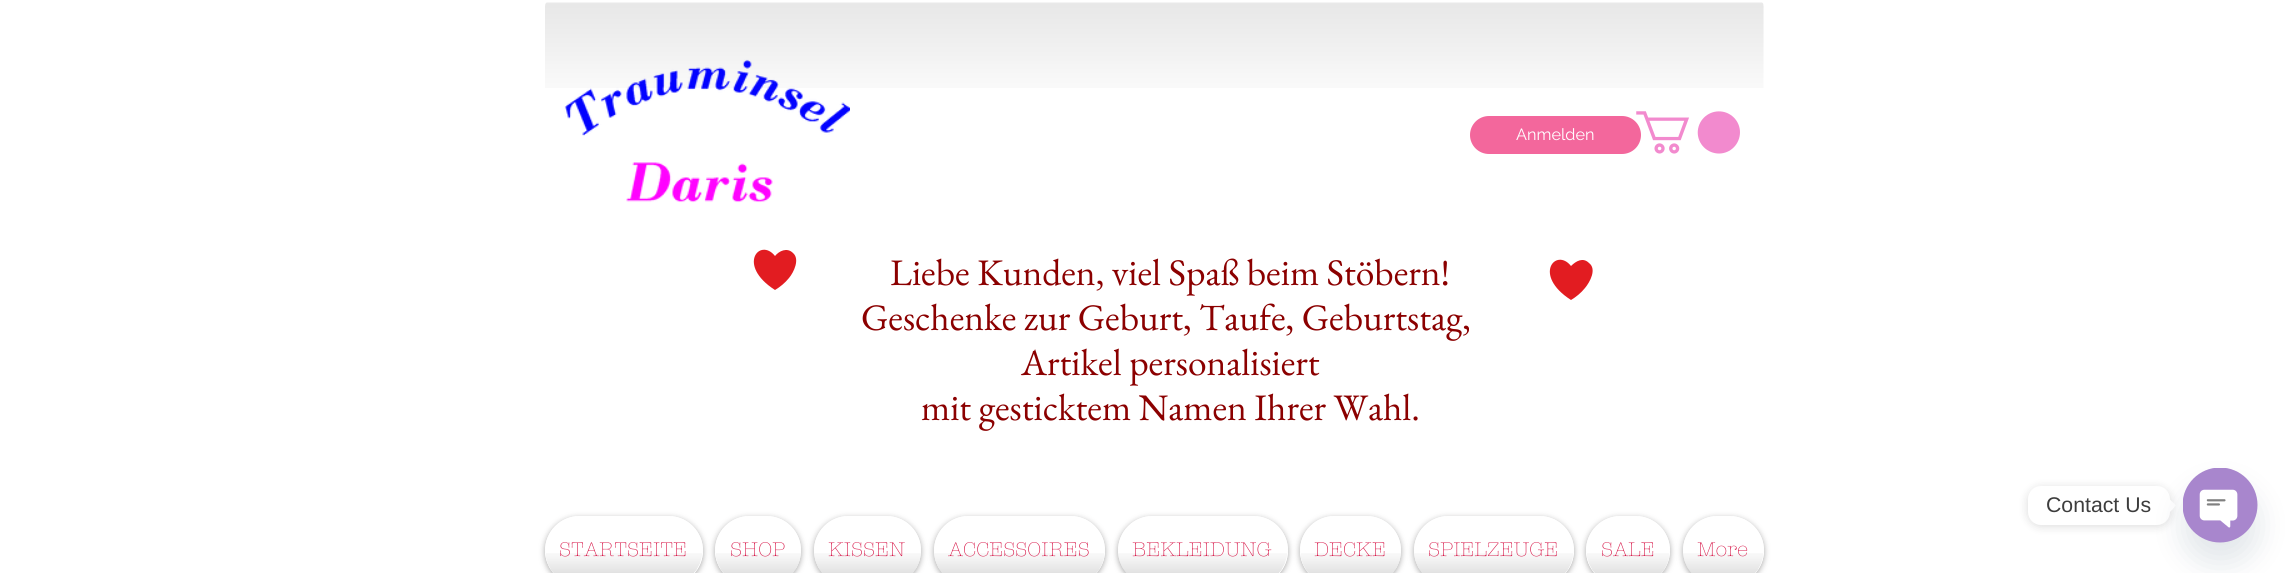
#include <cairo.h>
#include <math.h>
#include <stddef.h>

typedef struct { double x, y; const char *s; } line_t;

static void ink(cairo_t *ctx, unsigned color) {
    cairo_set_source_rgb(ctx, (color >> 16) / 255.0, (color >> 8 & 255) / 255.0, (color & 255) / 255.0);
}

static void round_path(cairo_t *ctx, double x, double y, double w, double h, double r) {
    cairo_new_sub_path(ctx);
    cairo_arc(ctx, x + w - r, y + h - r, r, 0, M_PI / 2);
    cairo_arc(ctx, x + r, y + h - r, r, M_PI / 2, M_PI);
    cairo_arc(ctx, x + r, y + r, r, M_PI, 1.5 * M_PI);
    cairo_arc(ctx, x + w - r, y + r, r, 1.5 * M_PI, 2 * M_PI);
    cairo_close_path(ctx);
}

static void blur_box(cairo_t *ctx, double x, double y, double w, double h, double r, double blur, double alpha) {
    cairo_push_group_with_content(ctx, CAIRO_CONTENT_ALPHA);
    cairo_set_operator(ctx, CAIRO_OPERATOR_SOURCE);
    for (int i = 15; i >= -15 && fmin(w, h) + blur * i / 3 > 0; i -= 2) {
        double e = blur * i / 6;
        cairo_set_source_rgba(ctx, 0, 0, 0, alpha * erfc((i - 1) / 8.5) / 2);
        round_path(ctx, x - e, y - e, w + 2 * e, h + 2 * e, fmax(0, fmin(r + e + blur * .6, fmin(w, h) / 2 + e)));
        cairo_fill(ctx);
    }
    cairo_pattern_t *soft = cairo_pop_group(ctx);
    cairo_mask(ctx, soft);
    cairo_pattern_destroy(soft);
}

static void paste(cairo_t *ctx, const char *path, double x, double y, double w, double h) {
    cairo_surface_t *image = cairo_image_surface_create_from_png(path);
    cairo_save(ctx);
    cairo_set_source_surface(ctx, image, x, y);
    cairo_rectangle(ctx, x, y, w, h);
    cairo_fill(ctx);
    cairo_restore(ctx);
    cairo_surface_destroy(image);
}

int main(void) {
    cairo_surface_t *surface = cairo_image_surface_create(CAIRO_FORMAT_RGB24, 2293, 573);
    cairo_t *ctx = cairo_create(surface);
    cairo_font_options_t *options = cairo_font_options_create();
    cairo_font_options_set_hint_metrics(options, CAIRO_HINT_METRICS_OFF);
    cairo_font_options_set_hint_style(options, CAIRO_HINT_STYLE_NONE);
    cairo_set_font_options(ctx, options);
    cairo_set_miter_limit(ctx, 4);
    ink(ctx, 0xFFFFFF);
    cairo_paint(ctx);
    paste(ctx, "media/1.png", 545, 2, 1219, 86);
    paste(ctx, "media/2.png", 564, 59, 286, 144);
    paste(ctx, "media/3.png", 1636, 111, 104, 43);
    ink(ctx, 0xF3679C);
    round_path(ctx, 1470, 116, 171, 38, 19);
    cairo_fill(ctx);
    cairo_select_font_face(ctx, "Raleway", CAIRO_FONT_SLANT_NORMAL, CAIRO_FONT_WEIGHT_NORMAL);
    cairo_set_font_size(ctx, 16.25);
    ink(ctx, 0xFFFFFF);
    cairo_move_to(ctx, 1516, 140);
    cairo_show_text(ctx, "Anmelden");
    ink(ctx, 0xE21C21);
    cairo_new_path(ctx);
    cairo_move_to(ctx, 793, 253);
    cairo_curve_to(ctx, 787, 247, 779, 251, 775, 256);
    cairo_curve_to(ctx, 760, 237, 736, 265, 775, 290);
    cairo_curve_to(ctx, 780, 287, 785, 283, 789, 278);
    cairo_curve_to(ctx, 794, 272, 800, 259, 793, 253);
    cairo_close_path(ctx);
    cairo_fill(ctx);
    cairo_select_font_face(ctx, "EB Garamond", CAIRO_FONT_SLANT_NORMAL, CAIRO_FONT_WEIGHT_NORMAL);
    cairo_set_font_size(ctx, 37.5);
    ink(ctx, 0x8B0000);
    {
        static const line_t items[] = {
            {890, 285, "Liebe Kunden, viel Spaß beim Stöbern!"},
            {861, 330, "Geschenke zur Geburt, Taufe, Geburtstag,"},
            {1021, 375, "Artikel personalisiert"},
            {921, 420, "mit gesticktem Namen Ihrer Wahl."},
        };
        for (size_t i = 0; i < sizeof items / sizeof *items; i++) {
            cairo_move_to(ctx, items[i].x, items[i].y);
            cairo_show_text(ctx, items[i].s);
        }
    }
    ink(ctx, 0xE21C21);
    cairo_new_path(ctx);
    cairo_move_to(ctx, 1589, 263);
    cairo_curve_to(ctx, 1583, 257, 1576, 261, 1571, 266);
    cairo_curve_to(ctx, 1556, 247, 1532, 275, 1571, 300);
    cairo_curve_to(ctx, 1576, 297, 1581, 293, 1585, 288);
    cairo_curve_to(ctx, 1590, 282, 1597, 269, 1589, 263);
    cairo_close_path(ctx);
    cairo_fill(ctx);
    cairo_save(ctx);
    cairo_set_fill_rule(ctx, CAIRO_FILL_RULE_EVEN_ODD);
    cairo_new_path(ctx);
    cairo_move_to(ctx, 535, 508);
    cairo_line_to(ctx, 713, 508);
    cairo_line_to(ctx, 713, 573);
    cairo_line_to(ctx, 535, 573);
    cairo_close_path(ctx);
    cairo_move_to(ctx, 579.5, 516);
    cairo_line_to(ctx, 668.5, 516);
    cairo_curve_to(ctx, 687.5, 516, 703, 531.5, 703, 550.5);
    cairo_curve_to(ctx, 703, 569.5, 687.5, 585, 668.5, 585);
    cairo_line_to(ctx, 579.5, 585);
    cairo_curve_to(ctx, 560.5, 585, 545, 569.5, 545, 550.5);
    cairo_curve_to(ctx, 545, 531.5, 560.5, 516, 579.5, 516);
    cairo_close_path(ctx);
    cairo_clip(ctx);
    ink(ctx, 0x6B6A6A);
    blur_box(ctx, 545, 518, 158, 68, 34, 3, 0.6);
    cairo_restore(ctx);
    cairo_set_source_rgba(ctx, 1, 1, 1, 0.5);
    round_path(ctx, 545, 516, 158, 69, 34.5);
    cairo_fill(ctx);
    paste(ctx, "media/4.png", 546, 553, 156, 20);
    cairo_select_font_face(ctx, "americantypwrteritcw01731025 Light", CAIRO_FONT_SLANT_NORMAL, CAIRO_FONT_WEIGHT_NORMAL);
    cairo_set_font_size(ctx, 20);
    ink(ctx, 0xD61043);
    cairo_move_to(ctx, 559, 556);
    cairo_show_text(ctx, "STARTSEITE");
    cairo_save(ctx);
    cairo_set_fill_rule(ctx, CAIRO_FILL_RULE_EVEN_ODD);
    cairo_new_path(ctx);
    cairo_move_to(ctx, 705, 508);
    cairo_line_to(ctx, 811, 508);
    cairo_line_to(ctx, 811, 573);
    cairo_line_to(ctx, 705, 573);
    cairo_close_path(ctx);
    cairo_move_to(ctx, 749.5, 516);
    cairo_line_to(ctx, 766.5, 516);
    cairo_curve_to(ctx, 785.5, 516, 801, 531.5, 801, 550.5);
    cairo_curve_to(ctx, 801, 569.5, 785.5, 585, 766.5, 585);
    cairo_line_to(ctx, 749.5, 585);
    cairo_curve_to(ctx, 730.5, 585, 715, 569.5, 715, 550.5);
    cairo_curve_to(ctx, 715, 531.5, 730.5, 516, 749.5, 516);
    cairo_close_path(ctx);
    cairo_clip(ctx);
    ink(ctx, 0x6B6A6A);
    blur_box(ctx, 715, 518, 86, 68, 34, 3, 0.6);
    cairo_restore(ctx);
    cairo_set_source_rgba(ctx, 1, 1, 1, 0.5);
    round_path(ctx, 715, 516, 86, 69, 34.5);
    cairo_fill(ctx);
    paste(ctx, "media/5.png", 716, 553, 85, 20);
    ink(ctx, 0xD61043);
    cairo_move_to(ctx, 730, 556);
    cairo_show_text(ctx, "SHOP");
    cairo_save(ctx);
    cairo_set_fill_rule(ctx, CAIRO_FILL_RULE_EVEN_ODD);
    cairo_new_path(ctx);
    cairo_move_to(ctx, 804, 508);
    cairo_line_to(ctx, 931, 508);
    cairo_line_to(ctx, 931, 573);
    cairo_line_to(ctx, 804, 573);
    cairo_close_path(ctx);
    cairo_move_to(ctx, 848.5, 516);
    cairo_line_to(ctx, 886.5, 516);
    cairo_curve_to(ctx, 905.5, 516, 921, 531.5, 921, 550.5);
    cairo_curve_to(ctx, 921, 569.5, 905.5, 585, 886.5, 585);
    cairo_line_to(ctx, 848.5, 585);
    cairo_curve_to(ctx, 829.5, 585, 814, 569.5, 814, 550.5);
    cairo_curve_to(ctx, 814, 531.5, 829.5, 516, 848.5, 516);
    cairo_close_path(ctx);
    cairo_clip(ctx);
    ink(ctx, 0x6B6A6A);
    blur_box(ctx, 814, 518, 107, 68, 34, 3, 0.6);
    cairo_restore(ctx);
    cairo_set_source_rgba(ctx, 1, 1, 1, 0.5);
    round_path(ctx, 814, 516, 107, 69, 34.5);
    cairo_fill(ctx);
    paste(ctx, "media/6.png", 814, 553, 107, 20);
    ink(ctx, 0xD61043);
    cairo_move_to(ctx, 828, 556);
    cairo_show_text(ctx, "KISSEN");
    cairo_save(ctx);
    cairo_set_fill_rule(ctx, CAIRO_FILL_RULE_EVEN_ODD);
    cairo_new_path(ctx);
    cairo_move_to(ctx, 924, 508);
    cairo_line_to(ctx, 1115, 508);
    cairo_line_to(ctx, 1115, 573);
    cairo_line_to(ctx, 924, 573);
    cairo_close_path(ctx);
    cairo_move_to(ctx, 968.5, 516);
    cairo_line_to(ctx, 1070.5, 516);
    cairo_curve_to(ctx, 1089.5, 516, 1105, 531.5, 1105, 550.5);
    cairo_curve_to(ctx, 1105, 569.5, 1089.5, 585, 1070.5, 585);
    cairo_line_to(ctx, 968.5, 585);
    cairo_curve_to(ctx, 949.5, 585, 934, 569.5, 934, 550.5);
    cairo_curve_to(ctx, 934, 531.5, 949.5, 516, 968.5, 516);
    cairo_close_path(ctx);
    cairo_clip(ctx);
    ink(ctx, 0x6B6A6A);
    blur_box(ctx, 934, 518, 171, 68, 34, 3, 0.6);
    cairo_restore(ctx);
    cairo_set_source_rgba(ctx, 1, 1, 1, 0.5);
    round_path(ctx, 934, 516, 171, 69, 34.5);
    cairo_fill(ctx);
    paste(ctx, "media/7.png", 934, 553, 170, 20);
    ink(ctx, 0xD61043);
    cairo_move_to(ctx, 948, 556);
    cairo_show_text(ctx, "ACCESSOIRES");
    cairo_save(ctx);
    cairo_set_fill_rule(ctx, CAIRO_FILL_RULE_EVEN_ODD);
    cairo_new_path(ctx);
    cairo_move_to(ctx, 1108, 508);
    cairo_line_to(ctx, 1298, 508);
    cairo_line_to(ctx, 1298, 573);
    cairo_line_to(ctx, 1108, 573);
    cairo_close_path(ctx);
    cairo_move_to(ctx, 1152.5, 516);
    cairo_line_to(ctx, 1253.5, 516);
    cairo_curve_to(ctx, 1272.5, 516, 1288, 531.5, 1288, 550.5);
    cairo_curve_to(ctx, 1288, 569.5, 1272.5, 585, 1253.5, 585);
    cairo_line_to(ctx, 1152.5, 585);
    cairo_curve_to(ctx, 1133.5, 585, 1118, 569.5, 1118, 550.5);
    cairo_curve_to(ctx, 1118, 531.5, 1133.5, 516, 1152.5, 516);
    cairo_close_path(ctx);
    cairo_clip(ctx);
    ink(ctx, 0x6B6A6A);
    blur_box(ctx, 1118, 518, 170, 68, 34, 3, 0.6);
    cairo_restore(ctx);
    cairo_set_source_rgba(ctx, 1, 1, 1, 0.5);
    round_path(ctx, 1118, 516, 170, 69, 34.5);
    cairo_fill(ctx);
    paste(ctx, "media/8.png", 1118, 553, 169, 20);
    ink(ctx, 0xD61043);
    cairo_move_to(ctx, 1132, 556);
    cairo_show_text(ctx, "BEKLEIDUNG");
    cairo_save(ctx);
    cairo_set_fill_rule(ctx, CAIRO_FILL_RULE_EVEN_ODD);
    cairo_new_path(ctx);
    cairo_move_to(ctx, 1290, 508);
    cairo_line_to(ctx, 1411, 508);
    cairo_line_to(ctx, 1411, 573);
    cairo_line_to(ctx, 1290, 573);
    cairo_close_path(ctx);
    cairo_move_to(ctx, 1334.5, 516);
    cairo_line_to(ctx, 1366.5, 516);
    cairo_curve_to(ctx, 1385.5, 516, 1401, 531.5, 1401, 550.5);
    cairo_curve_to(ctx, 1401, 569.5, 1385.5, 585, 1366.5, 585);
    cairo_line_to(ctx, 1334.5, 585);
    cairo_curve_to(ctx, 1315.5, 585, 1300, 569.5, 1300, 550.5);
    cairo_curve_to(ctx, 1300, 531.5, 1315.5, 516, 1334.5, 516);
    cairo_close_path(ctx);
    cairo_clip(ctx);
    ink(ctx, 0x6B6A6A);
    blur_box(ctx, 1300, 518, 101, 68, 34, 3, 0.6);
    cairo_restore(ctx);
    cairo_set_source_rgba(ctx, 1, 1, 1, 0.5);
    round_path(ctx, 1300, 516, 101, 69, 34.5);
    cairo_fill(ctx);
    paste(ctx, "media/9.png", 1301, 553, 100, 20);
    ink(ctx, 0xD61043);
    cairo_move_to(ctx, 1314, 556);
    cairo_show_text(ctx, "DECKE");
    cairo_save(ctx);
    cairo_set_fill_rule(ctx, CAIRO_FILL_RULE_EVEN_ODD);
    cairo_new_path(ctx);
    cairo_move_to(ctx, 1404, 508);
    cairo_line_to(ctx, 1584, 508);
    cairo_line_to(ctx, 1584, 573);
    cairo_line_to(ctx, 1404, 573);
    cairo_close_path(ctx);
    cairo_move_to(ctx, 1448.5, 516);
    cairo_line_to(ctx, 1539.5, 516);
    cairo_curve_to(ctx, 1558.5, 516, 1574, 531.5, 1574, 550.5);
    cairo_curve_to(ctx, 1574, 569.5, 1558.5, 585, 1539.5, 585);
    cairo_line_to(ctx, 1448.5, 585);
    cairo_curve_to(ctx, 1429.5, 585, 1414, 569.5, 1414, 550.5);
    cairo_curve_to(ctx, 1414, 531.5, 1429.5, 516, 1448.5, 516);
    cairo_close_path(ctx);
    cairo_clip(ctx);
    ink(ctx, 0x6B6A6A);
    blur_box(ctx, 1414, 518, 160, 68, 34, 3, 0.6);
    cairo_restore(ctx);
    cairo_set_source_rgba(ctx, 1, 1, 1, 0.5);
    round_path(ctx, 1414, 516, 160, 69, 34.5);
    cairo_fill(ctx);
    paste(ctx, "media/10.png", 1414, 553, 159, 20);
    ink(ctx, 0xD61043);
    cairo_move_to(ctx, 1428, 556);
    cairo_show_text(ctx, "SPIELZEUGE");
    cairo_save(ctx);
    cairo_set_fill_rule(ctx, CAIRO_FILL_RULE_EVEN_ODD);
    cairo_new_path(ctx);
    cairo_move_to(ctx, 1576, 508);
    cairo_line_to(ctx, 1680, 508);
    cairo_line_to(ctx, 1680, 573);
    cairo_line_to(ctx, 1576, 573);
    cairo_close_path(ctx);
    cairo_move_to(ctx, 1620.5, 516);
    cairo_line_to(ctx, 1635.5, 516);
    cairo_curve_to(ctx, 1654.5, 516, 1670, 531.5, 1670, 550.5);
    cairo_curve_to(ctx, 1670, 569.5, 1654.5, 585, 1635.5, 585);
    cairo_line_to(ctx, 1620.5, 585);
    cairo_curve_to(ctx, 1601.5, 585, 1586, 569.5, 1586, 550.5);
    cairo_curve_to(ctx, 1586, 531.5, 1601.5, 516, 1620.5, 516);
    cairo_close_path(ctx);
    cairo_clip(ctx);
    ink(ctx, 0x6B6A6A);
    blur_box(ctx, 1586, 518, 84, 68, 34, 3, 0.6);
    cairo_restore(ctx);
    cairo_set_source_rgba(ctx, 1, 1, 1, 0.5);
    round_path(ctx, 1586, 516, 84, 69, 34.5);
    cairo_fill(ctx);
    paste(ctx, "media/11.png", 1587, 553, 82, 20);
    ink(ctx, 0xD61043);
    cairo_move_to(ctx, 1601, 556);
    cairo_show_text(ctx, "SALE");
    cairo_save(ctx);
    cairo_set_fill_rule(ctx, CAIRO_FILL_RULE_EVEN_ODD);
    cairo_new_path(ctx);
    cairo_move_to(ctx, 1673, 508);
    cairo_line_to(ctx, 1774, 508);
    cairo_line_to(ctx, 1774, 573);
    cairo_line_to(ctx, 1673, 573);
    cairo_close_path(ctx);
    cairo_move_to(ctx, 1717.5, 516);
    cairo_line_to(ctx, 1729.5, 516);
    cairo_curve_to(ctx, 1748.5, 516, 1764, 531.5, 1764, 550.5);
    cairo_curve_to(ctx, 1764, 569.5, 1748.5, 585, 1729.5, 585);
    cairo_line_to(ctx, 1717.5, 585);
    cairo_curve_to(ctx, 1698.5, 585, 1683, 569.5, 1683, 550.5);
    cairo_curve_to(ctx, 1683, 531.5, 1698.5, 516, 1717.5, 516);
    cairo_close_path(ctx);
    cairo_clip(ctx);
    ink(ctx, 0x6B6A6A);
    blur_box(ctx, 1683, 518, 81, 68, 34, 3, 0.6);
    cairo_restore(ctx);
    cairo_set_source_rgba(ctx, 1, 1, 1, 0.5);
    round_path(ctx, 1683, 516, 81, 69, 34.5);
    cairo_fill(ctx);
    paste(ctx, "media/12.png", 1683, 553, 80, 20);
    ink(ctx, 0xD61043);
    cairo_move_to(ctx, 1697, 556);
    cairo_show_text(ctx, "More");
    ink(ctx, 0x000000);
    blur_box(ctx, 2028, 488, 142, 38, 13, 5, 0.15);
    ink(ctx, 0xFFFFFF);
    round_path(ctx, 2028, 486, 142, 39, 13);
    cairo_fill(ctx);
    cairo_select_font_face(ctx, "Liberation Sans", CAIRO_FONT_SLANT_NORMAL, CAIRO_FONT_WEIGHT_NORMAL);
    cairo_set_font_size(ctx, 21.25);
    ink(ctx, 0x3D3D3D);
    cairo_move_to(ctx, 2046, 512);
    cairo_show_text(ctx, "Contact Us");
    ink(ctx, 0xFFFFFF);
    cairo_new_path(ctx);
    cairo_move_to(ctx, 2170, 512);
    cairo_line_to(ctx, 2170, 499.5);
    cairo_line_to(ctx, 2176, 505.5);
    cairo_close_path(ctx);
    cairo_fill(ctx);
    ink(ctx, 0x49687E);
    blur_box(ctx, 2183, 488, 75, 75, 37.5, 15, 0.16);
    paste(ctx, "media/13.png", 2183, 468, 75, 75);
    cairo_surface_write_to_png(surface, "image.png");
    cairo_font_options_destroy(options);
    cairo_destroy(ctx);
    cairo_surface_destroy(surface);
    return 0;
}
